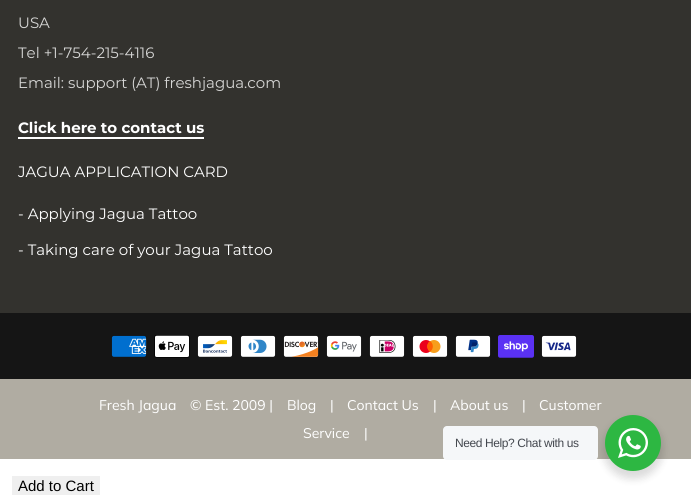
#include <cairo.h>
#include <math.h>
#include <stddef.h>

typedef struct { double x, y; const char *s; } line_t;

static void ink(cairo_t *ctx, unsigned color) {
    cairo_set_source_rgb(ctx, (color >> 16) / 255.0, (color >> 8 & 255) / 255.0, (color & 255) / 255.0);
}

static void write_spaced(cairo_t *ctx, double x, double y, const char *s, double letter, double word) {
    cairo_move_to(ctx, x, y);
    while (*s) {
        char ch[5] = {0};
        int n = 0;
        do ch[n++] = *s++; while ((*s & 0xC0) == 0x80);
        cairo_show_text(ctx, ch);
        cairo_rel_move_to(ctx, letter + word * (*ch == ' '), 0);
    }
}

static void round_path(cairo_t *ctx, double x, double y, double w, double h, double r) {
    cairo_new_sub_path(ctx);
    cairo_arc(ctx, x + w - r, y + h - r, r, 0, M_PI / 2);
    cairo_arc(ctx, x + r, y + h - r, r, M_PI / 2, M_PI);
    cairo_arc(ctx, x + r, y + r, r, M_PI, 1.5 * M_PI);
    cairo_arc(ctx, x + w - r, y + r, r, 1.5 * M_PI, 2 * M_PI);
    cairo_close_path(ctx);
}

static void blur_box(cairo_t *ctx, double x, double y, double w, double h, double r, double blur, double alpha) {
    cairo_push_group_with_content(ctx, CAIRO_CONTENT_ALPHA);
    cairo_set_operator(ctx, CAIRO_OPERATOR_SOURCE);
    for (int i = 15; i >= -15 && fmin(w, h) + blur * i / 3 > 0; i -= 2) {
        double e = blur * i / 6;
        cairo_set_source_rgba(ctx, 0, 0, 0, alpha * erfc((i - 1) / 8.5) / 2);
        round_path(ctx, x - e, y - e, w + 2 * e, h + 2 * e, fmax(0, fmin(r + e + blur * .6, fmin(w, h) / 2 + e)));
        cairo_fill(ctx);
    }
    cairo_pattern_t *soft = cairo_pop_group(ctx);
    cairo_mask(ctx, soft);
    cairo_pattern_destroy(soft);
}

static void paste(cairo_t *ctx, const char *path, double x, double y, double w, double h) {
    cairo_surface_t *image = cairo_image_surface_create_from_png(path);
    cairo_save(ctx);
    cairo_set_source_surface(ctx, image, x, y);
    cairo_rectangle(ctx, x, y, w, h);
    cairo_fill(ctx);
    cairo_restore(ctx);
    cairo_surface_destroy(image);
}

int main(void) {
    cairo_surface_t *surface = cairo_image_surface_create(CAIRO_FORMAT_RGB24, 691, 501);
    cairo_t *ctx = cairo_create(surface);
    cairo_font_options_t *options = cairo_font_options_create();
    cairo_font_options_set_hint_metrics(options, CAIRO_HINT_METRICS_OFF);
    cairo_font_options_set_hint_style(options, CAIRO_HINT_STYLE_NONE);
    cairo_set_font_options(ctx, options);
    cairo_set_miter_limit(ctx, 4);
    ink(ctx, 0xFFFFFF);
    cairo_paint(ctx);
    ink(ctx, 0x33322E);
    cairo_rectangle(ctx, 0, 0, 691, 313);
    cairo_fill(ctx);
    cairo_select_font_face(ctx, "Montserrat", CAIRO_FONT_SLANT_NORMAL, CAIRO_FONT_WEIGHT_NORMAL);
    cairo_set_font_size(ctx, 15);
    ink(ctx, 0xD6D6D5);
    {
        static const line_t items[] = {
            {18, 28, "USA"},
            {18, 58, "Tel +1-754-215-4116"},
            {18, 88, "Email: support (AT) freshjagua.com"},
        };
        for (size_t i = 0; i < sizeof items / sizeof *items; i++) {
            cairo_move_to(ctx, items[i].x, items[i].y);
            cairo_show_text(ctx, items[i].s);
        }
    }
    cairo_select_font_face(ctx, "Montserrat", CAIRO_FONT_SLANT_NORMAL, CAIRO_FONT_WEIGHT_BOLD);
    ink(ctx, 0xFFFFFF);
    cairo_move_to(ctx, 18, 133);
    cairo_show_text(ctx, "Click here to contact us");
    cairo_rectangle(ctx, 18, 137, 186, 2);
    cairo_fill(ctx);
    cairo_select_font_face(ctx, "Montserrat", CAIRO_FONT_SLANT_NORMAL, CAIRO_FONT_WEIGHT_NORMAL);
    {
        static const line_t items[] = {
            {18, 177, "JAGUA APPLICATION CARD"},
            {18, 219, "- Applying Jagua Tattoo"},
            {18, 255, "- Taking care of your Jagua Tattoo"},
        };
        for (size_t i = 0; i < sizeof items / sizeof *items; i++) {
            cairo_move_to(ctx, items[i].x, items[i].y);
            cairo_show_text(ctx, items[i].s);
        }
    }
    ink(ctx, 0x151515);
    cairo_rectangle(ctx, 0, 313, 691, 66);
    cairo_fill(ctx);
    paste(ctx, "media/1.png", 111, 335, 36, 22);
    paste(ctx, "media/2.png", 154, 335, 36, 23);
    paste(ctx, "media/3.png", 197, 335, 36, 22);
    paste(ctx, "media/4.png", 240, 335, 36, 22);
    paste(ctx, "media/5.png", 283, 335, 36, 22);
    paste(ctx, "media/6.png", 326, 335, 36, 22);
    paste(ctx, "media/7.png", 369, 335, 36, 22);
    paste(ctx, "media/8.png", 412, 335, 36, 22);
    paste(ctx, "media/9.png", 455, 335, 36, 22);
    paste(ctx, "media/10.png", 498, 335, 36, 23);
    paste(ctx, "media/11.png", 541, 335, 36, 22);
    ink(ctx, 0xB0ACA2);
    cairo_rectangle(ctx, 0, 379, 691, 80);
    cairo_fill(ctx);
    cairo_select_font_face(ctx, "Muli", CAIRO_FONT_SLANT_NORMAL, CAIRO_FONT_WEIGHT_NORMAL);
    cairo_set_font_size(ctx, 14);
    ink(ctx, 0xFFFFFF);
    {
        static const line_t items[] = {
            {99, 410, "Fresh Jagua"},
            {190, 410, "© Est. 2009 |"},
            {287, 410, "Blog"},
            {330, 410, "|"},
            {347, 410, "Contact Us"},
            {433, 410, "|"},
            {450, 410, "About us"},
            {522, 410, "|"},
            {539, 410, "Customer"},
            {303, 438, "Service"},
            {364, 438, "|"},
        };
        for (size_t i = 0; i < sizeof items / sizeof *items; i++) {
            cairo_move_to(ctx, items[i].x, items[i].y);
            cairo_show_text(ctx, items[i].s);
        }
    }
    ink(ctx, 0x000000);
    blur_box(ctx, 603, 419, 60, 60, 30, 4, 0.14);
    ink(ctx, 0xF5F7F9);
    round_path(ctx, 443, 426, 155, 34, 4);
    cairo_fill(ctx);
    cairo_select_font_face(ctx, "Liberation Sans", CAIRO_FONT_SLANT_NORMAL, CAIRO_FONT_WEIGHT_NORMAL);
    cairo_set_font_size(ctx, 12);
    ink(ctx, 0x43474E);
    write_spaced(ctx, 455, 447, "Need Help? Chat with us", -0.4, 0);
    ink(ctx, 0x2DB742);
    cairo_new_path(ctx);
    cairo_arc(ctx, 633, 443, 28, 0, 2 * M_PI);
    cairo_fill(ctx);
    paste(ctx, "media/12.png", 618, 428, 30, 30);
    ink(ctx, 0xEFEFEF);
    cairo_rectangle(ctx, 12, 476, 88, 19);
    cairo_fill(ctx);
    cairo_set_font_size(ctx, 15);
    ink(ctx, 0x000000);
    cairo_move_to(ctx, 18, 491);
    cairo_show_text(ctx, "Add to Cart");
    cairo_surface_write_to_png(surface, "image.png");
    cairo_font_options_destroy(options);
    cairo_destroy(ctx);
    cairo_surface_destroy(surface);
    return 0;
}
